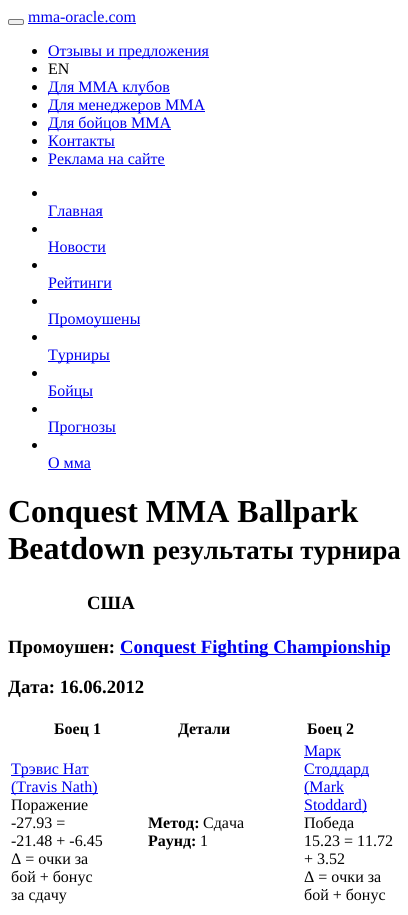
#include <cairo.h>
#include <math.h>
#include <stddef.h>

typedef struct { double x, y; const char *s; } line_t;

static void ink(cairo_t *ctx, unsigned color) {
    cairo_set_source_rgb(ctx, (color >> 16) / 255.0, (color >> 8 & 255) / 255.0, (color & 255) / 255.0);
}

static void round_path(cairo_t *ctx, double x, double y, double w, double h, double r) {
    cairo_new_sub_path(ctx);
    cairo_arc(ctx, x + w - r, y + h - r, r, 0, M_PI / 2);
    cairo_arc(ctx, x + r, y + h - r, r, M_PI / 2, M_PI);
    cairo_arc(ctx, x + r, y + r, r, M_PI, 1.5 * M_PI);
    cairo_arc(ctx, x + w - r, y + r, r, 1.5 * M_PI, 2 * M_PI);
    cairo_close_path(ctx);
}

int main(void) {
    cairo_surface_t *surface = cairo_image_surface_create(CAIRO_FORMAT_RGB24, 408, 915);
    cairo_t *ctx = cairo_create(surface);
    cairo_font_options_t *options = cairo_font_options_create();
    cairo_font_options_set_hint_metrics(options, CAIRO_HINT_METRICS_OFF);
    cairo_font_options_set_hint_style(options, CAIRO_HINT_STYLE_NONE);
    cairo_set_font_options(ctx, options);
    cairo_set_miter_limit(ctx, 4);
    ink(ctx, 0xFFFFFF);
    cairo_paint(ctx);
    ink(ctx, 0xEFEFEF);
    round_path(ctx, 8.5, 19.5, 15, 5, 1.5);
    cairo_fill_preserve(ctx);
    ink(ctx, 0x767676);
    cairo_set_line_width(ctx, 1);
    cairo_stroke(ctx);
    cairo_select_font_face(ctx, "Liberation Serif", CAIRO_FONT_SLANT_NORMAL, CAIRO_FONT_WEIGHT_NORMAL);
    cairo_set_font_size(ctx, 16);
    ink(ctx, 0x0000EE);
    cairo_move_to(ctx, 28, 22);
    cairo_show_text(ctx, "mma-oracle.com");
    cairo_rectangle(ctx, 28, 23, 108, 1);
    cairo_fill(ctx);
    ink(ctx, 0x000000);
    cairo_arc(ctx, 34.5, 51.5, 2.5, 0, 2 * M_PI);
    cairo_fill(ctx);
    ink(ctx, 0x0000EE);
    cairo_rectangle(ctx, 48, 57, 161, 1);
    cairo_fill(ctx);
    cairo_move_to(ctx, 48, 56);
    cairo_show_text(ctx, "Отзывы и предложения");
    ink(ctx, 0x000000);
    cairo_new_path(ctx);
    cairo_arc(ctx, 34.5, 69.5, 2.5, 0, 2 * M_PI);
    cairo_fill(ctx);
    cairo_move_to(ctx, 48, 74);
    cairo_show_text(ctx, "EN");
    cairo_new_path(ctx);
    cairo_arc(ctx, 34.5, 87.5, 2.5, 0, 2 * M_PI);
    cairo_fill(ctx);
    ink(ctx, 0x0000EE);
    cairo_rectangle(ctx, 48, 93, 122, 1);
    cairo_fill(ctx);
    cairo_move_to(ctx, 48, 92);
    cairo_show_text(ctx, "Для ММА клубов");
    ink(ctx, 0x000000);
    cairo_new_path(ctx);
    cairo_arc(ctx, 34.5, 105.5, 2.5, 0, 2 * M_PI);
    cairo_fill(ctx);
    ink(ctx, 0x0000EE);
    cairo_rectangle(ctx, 48, 111, 157, 1);
    cairo_fill(ctx);
    cairo_move_to(ctx, 48, 110);
    cairo_show_text(ctx, "Для менеджеров ММА");
    ink(ctx, 0x000000);
    cairo_new_path(ctx);
    cairo_arc(ctx, 34.5, 123.5, 2.5, 0, 2 * M_PI);
    cairo_fill(ctx);
    ink(ctx, 0x0000EE);
    cairo_rectangle(ctx, 48, 129, 123, 1);
    cairo_fill(ctx);
    cairo_move_to(ctx, 48, 128);
    cairo_show_text(ctx, "Для бойцов ММА");
    ink(ctx, 0x000000);
    cairo_new_path(ctx);
    cairo_arc(ctx, 34.5, 141.5, 2.5, 0, 2 * M_PI);
    cairo_fill(ctx);
    ink(ctx, 0x0000EE);
    cairo_move_to(ctx, 48, 146);
    cairo_show_text(ctx, "Контакты");
    cairo_rectangle(ctx, 48, 147, 67, 1);
    cairo_fill(ctx);
    ink(ctx, 0x000000);
    cairo_arc(ctx, 34.5, 159.5, 2.5, 0, 2 * M_PI);
    cairo_fill(ctx);
    ink(ctx, 0x0000EE);
    cairo_move_to(ctx, 48, 164);
    cairo_show_text(ctx, "Реклама на сайте");
    cairo_rectangle(ctx, 48, 165, 117, 1);
    cairo_fill(ctx);
    ink(ctx, 0x000000);
    cairo_arc(ctx, 34.5, 193.5, 2.5, 0, 2 * M_PI);
    cairo_fill(ctx);
    ink(ctx, 0x0000EE);
    cairo_move_to(ctx, 48, 216);
    cairo_show_text(ctx, "Главная");
    cairo_rectangle(ctx, 48, 217, 55, 1);
    cairo_fill(ctx);
    ink(ctx, 0x000000);
    cairo_arc(ctx, 34.5, 229.5, 2.5, 0, 2 * M_PI);
    cairo_fill(ctx);
    ink(ctx, 0x0000EE);
    cairo_move_to(ctx, 48, 252);
    cairo_show_text(ctx, "Новости");
    cairo_rectangle(ctx, 48, 253, 58, 1);
    cairo_fill(ctx);
    ink(ctx, 0x000000);
    cairo_arc(ctx, 34.5, 265.5, 2.5, 0, 2 * M_PI);
    cairo_fill(ctx);
    ink(ctx, 0x0000EE);
    cairo_move_to(ctx, 48, 288);
    cairo_show_text(ctx, "Рейтинги");
    cairo_rectangle(ctx, 48, 289, 64, 1);
    cairo_fill(ctx);
    ink(ctx, 0x000000);
    cairo_arc(ctx, 34.5, 301.5, 2.5, 0, 2 * M_PI);
    cairo_fill(ctx);
    ink(ctx, 0x0000EE);
    cairo_rectangle(ctx, 48, 325, 92, 1);
    cairo_fill(ctx);
    cairo_move_to(ctx, 48, 324);
    cairo_show_text(ctx, "Промоушены");
    ink(ctx, 0x000000);
    cairo_new_path(ctx);
    cairo_arc(ctx, 34.5, 337.5, 2.5, 0, 2 * M_PI);
    cairo_fill(ctx);
    ink(ctx, 0x0000EE);
    cairo_rectangle(ctx, 48, 361, 62, 1);
    cairo_fill(ctx);
    cairo_move_to(ctx, 48, 360);
    cairo_show_text(ctx, "Турниры");
    ink(ctx, 0x000000);
    cairo_new_path(ctx);
    cairo_arc(ctx, 34.5, 373.5, 2.5, 0, 2 * M_PI);
    cairo_fill(ctx);
    ink(ctx, 0x0000EE);
    cairo_rectangle(ctx, 48, 397, 45, 1);
    cairo_fill(ctx);
    cairo_move_to(ctx, 48, 396);
    cairo_show_text(ctx, "Бойцы");
    ink(ctx, 0x000000);
    cairo_new_path(ctx);
    cairo_arc(ctx, 34.5, 409.5, 2.5, 0, 2 * M_PI);
    cairo_fill(ctx);
    ink(ctx, 0x0000EE);
    cairo_rectangle(ctx, 48, 433, 68, 1);
    cairo_fill(ctx);
    cairo_move_to(ctx, 48, 432);
    cairo_show_text(ctx, "Прогнозы");
    ink(ctx, 0x000000);
    cairo_new_path(ctx);
    cairo_arc(ctx, 34.5, 445.5, 2.5, 0, 2 * M_PI);
    cairo_fill(ctx);
    ink(ctx, 0x0000EE);
    cairo_move_to(ctx, 48, 468);
    cairo_show_text(ctx, "О мма");
    cairo_rectangle(ctx, 48, 469, 43, 1);
    cairo_fill(ctx);
    cairo_select_font_face(ctx, "Liberation Serif", CAIRO_FONT_SLANT_NORMAL, CAIRO_FONT_WEIGHT_BOLD);
    cairo_set_font_size(ctx, 32);
    ink(ctx, 0x000000);
    cairo_move_to(ctx, 8, 522);
    cairo_show_text(ctx, "Conquest MMA Ballpark");
    cairo_move_to(ctx, 8, 559);
    cairo_show_text(ctx, "Beatdown");
    cairo_set_font_size(ctx, 26.75);
    cairo_move_to(ctx, 153, 559);
    cairo_show_text(ctx, "результаты турнира");
    cairo_set_font_size(ctx, 18.75);
    cairo_move_to(ctx, 87, 609);
    cairo_show_text(ctx, "США");
    cairo_move_to(ctx, 8, 653);
    cairo_show_text(ctx, "Промоушен:");
    ink(ctx, 0x0000EE);
    cairo_rectangle(ctx, 120, 654, 270, 1);
    cairo_fill(ctx);
    cairo_move_to(ctx, 120, 653);
    cairo_show_text(ctx, "Conquest Fighting Championship");
    ink(ctx, 0x000000);
    cairo_move_to(ctx, 8, 693);
    cairo_show_text(ctx, "Дата: 16.06.2012");
    cairo_set_font_size(ctx, 16);
    {
        static const line_t items[] = {
            {54, 734, "Боец 1"},
            {178, 734, "Детали"},
            {307, 734, "Боец 2"},
        };
        for (size_t i = 0; i < sizeof items / sizeof *items; i++) {
            cairo_move_to(ctx, items[i].x, items[i].y);
            cairo_show_text(ctx, items[i].s);
        }
    }
    ink(ctx, 0x0000EE);
    cairo_rectangle(ctx, 11, 775, 78, 1);
    cairo_fill(ctx);
    cairo_select_font_face(ctx, "Liberation Serif", CAIRO_FONT_SLANT_NORMAL, CAIRO_FONT_WEIGHT_NORMAL);
    cairo_move_to(ctx, 11, 774);
    cairo_show_text(ctx, "Трэвис Нат");
    cairo_rectangle(ctx, 11, 793, 87, 1);
    cairo_fill(ctx);
    cairo_move_to(ctx, 11, 792);
    cairo_show_text(ctx, "(Travis Nath)");
    ink(ctx, 0x000000);
    {
        static const line_t items[] = {
            {11, 810, "Поражение"},
            {11, 828, "-27.93 ="},
            {11, 846, "-21.48 + -6.45"},
            {11, 864, "Δ = очки за"},
            {11, 882, "бой + бонус"},
            {11, 900, "за сдачу"},
        };
        for (size_t i = 0; i < sizeof items / sizeof *items; i++) {
            cairo_move_to(ctx, items[i].x, items[i].y);
            cairo_show_text(ctx, items[i].s);
        }
    }
    cairo_select_font_face(ctx, "Liberation Serif", CAIRO_FONT_SLANT_NORMAL, CAIRO_FONT_WEIGHT_BOLD);
    cairo_move_to(ctx, 148, 828);
    cairo_show_text(ctx, "Метод:");
    cairo_select_font_face(ctx, "Liberation Serif", CAIRO_FONT_SLANT_NORMAL, CAIRO_FONT_WEIGHT_NORMAL);
    cairo_move_to(ctx, 203, 828);
    cairo_show_text(ctx, "Сдача");
    cairo_select_font_face(ctx, "Liberation Serif", CAIRO_FONT_SLANT_NORMAL, CAIRO_FONT_WEIGHT_BOLD);
    cairo_move_to(ctx, 148, 846);
    cairo_show_text(ctx, "Раунд:");
    cairo_select_font_face(ctx, "Liberation Serif", CAIRO_FONT_SLANT_NORMAL, CAIRO_FONT_WEIGHT_NORMAL);
    cairo_move_to(ctx, 200, 846);
    cairo_show_text(ctx, "1");
    ink(ctx, 0x0000EE);
    cairo_rectangle(ctx, 304, 757, 37, 1);
    cairo_fill(ctx);
    cairo_move_to(ctx, 304, 756);
    cairo_show_text(ctx, "Марк");
    cairo_rectangle(ctx, 304, 775, 65, 1);
    cairo_fill(ctx);
    cairo_move_to(ctx, 304, 774);
    cairo_show_text(ctx, "Стоддард");
    cairo_rectangle(ctx, 304, 793, 40, 1);
    cairo_fill(ctx);
    cairo_move_to(ctx, 304, 792);
    cairo_show_text(ctx, "(Mark");
    cairo_rectangle(ctx, 304, 811, 63, 1);
    cairo_fill(ctx);
    cairo_move_to(ctx, 304, 810);
    cairo_show_text(ctx, "Stoddard)");
    ink(ctx, 0x000000);
    {
        static const line_t items[] = {
            {304, 828, "Победа"},
            {304, 846, "15.23 = 11.72"},
            {304, 864, "+ 3.52"},
            {304, 882, "Δ = очки за"},
            {304, 900, "бой + бонус"},
        };
        for (size_t i = 0; i < sizeof items / sizeof *items; i++) {
            cairo_move_to(ctx, items[i].x, items[i].y);
            cairo_show_text(ctx, items[i].s);
        }
    }
    cairo_surface_write_to_png(surface, "image.png");
    cairo_font_options_destroy(options);
    cairo_destroy(ctx);
    cairo_surface_destroy(surface);
    return 0;
}
